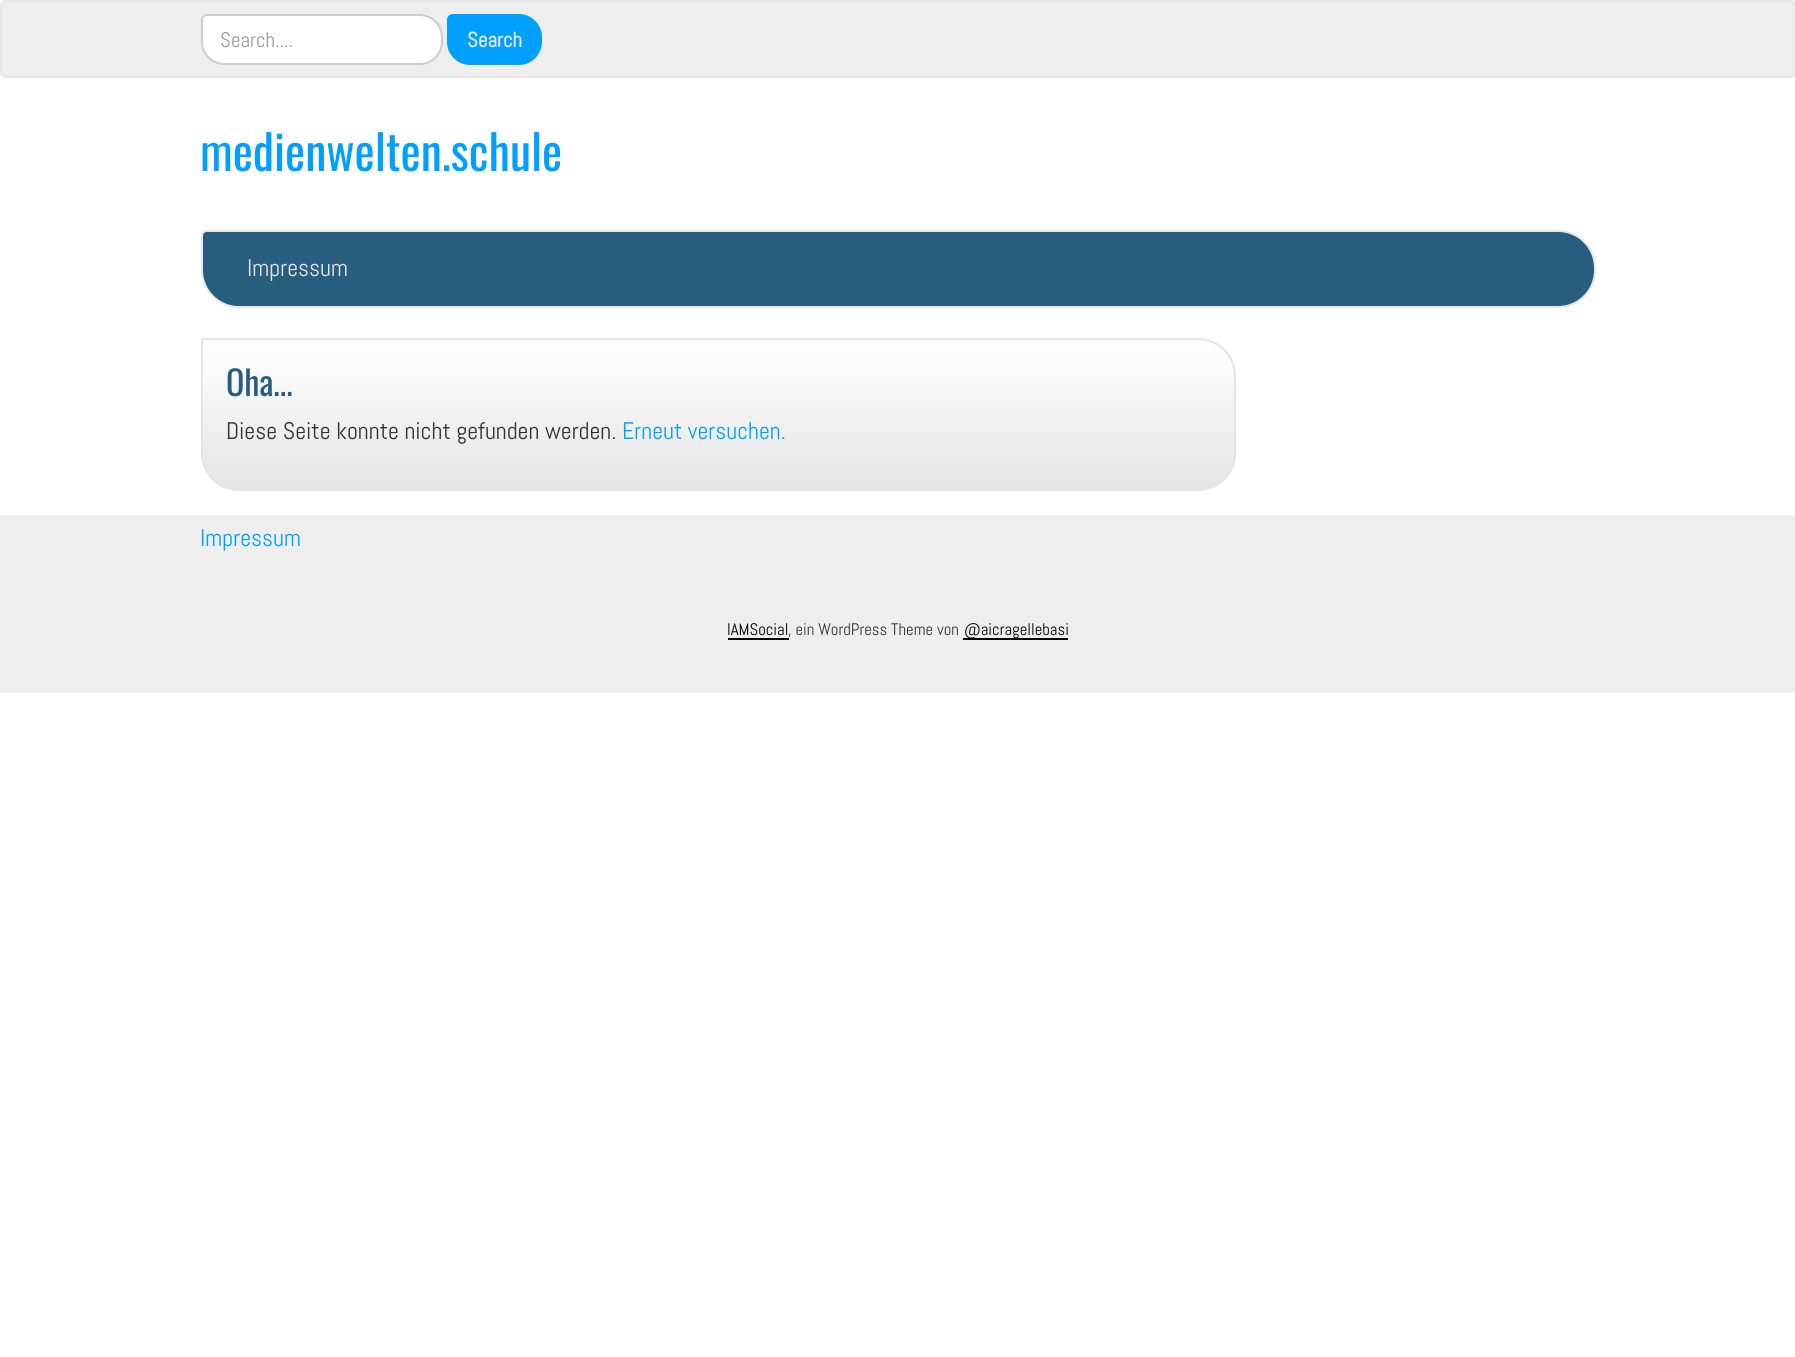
#include <cairo.h>
#include <math.h>
#include <stddef.h>


static void ink(cairo_t *ctx, unsigned color) {
    cairo_set_source_rgb(ctx, (color >> 16) / 255.0, (color >> 8 & 255) / 255.0, (color & 255) / 255.0);
}

static void round_path(cairo_t *ctx, double x, double y, double w, double h, double r) {
    cairo_new_sub_path(ctx);
    cairo_arc(ctx, x + w - r, y + h - r, r, 0, M_PI / 2);
    cairo_arc(ctx, x + r, y + h - r, r, M_PI / 2, M_PI);
    cairo_arc(ctx, x + r, y + r, r, M_PI, 1.5 * M_PI);
    cairo_arc(ctx, x + w - r, y + r, r, 1.5 * M_PI, 2 * M_PI);
    cairo_close_path(ctx);
}

int main(void) {
    cairo_surface_t *surface = cairo_image_surface_create(CAIRO_FORMAT_RGB24, 1795, 1357);
    cairo_t *ctx = cairo_create(surface);
    cairo_font_options_t *options = cairo_font_options_create();
    cairo_font_options_set_hint_metrics(options, CAIRO_HINT_METRICS_OFF);
    cairo_font_options_set_hint_style(options, CAIRO_HINT_STYLE_NONE);
    cairo_set_font_options(ctx, options);
    cairo_set_miter_limit(ctx, 4);
    cairo_pattern_t *gradient;
    ink(ctx, 0xFFFFFF);
    cairo_paint(ctx);
    ink(ctx, 0xEEEEEE);
    round_path(ctx, 1, 1, 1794, 76, 5);
    cairo_fill_preserve(ctx);
    ink(ctx, 0xE7E7E7);
    cairo_stroke(ctx);
    ink(ctx, 0xFFFFFF);
    cairo_new_path(ctx);
    cairo_move_to(ctx, 207, 14);
    cairo_line_to(ctx, 420, 14);
    cairo_curve_to(ctx, 432.5, 14, 443, 24.5, 443, 37);
    cairo_line_to(ctx, 443, 42);
    cairo_curve_to(ctx, 443, 54.5, 432.5, 65, 420, 65);
    cairo_line_to(ctx, 224, 65);
    cairo_curve_to(ctx, 211.5, 65, 201, 54.5, 201, 42);
    cairo_line_to(ctx, 201, 20);
    cairo_curve_to(ctx, 201, 16.5, 203.5, 14, 207, 14);
    cairo_close_path(ctx);
    cairo_fill(ctx);
    ink(ctx, 0xECECEC);
    cairo_new_path(ctx);
    cairo_move_to(ctx, 207, 16);
    cairo_line_to(ctx, 420, 16);
    cairo_curve_to(ctx, 432, 16, 441, 26, 441, 38);
    cairo_line_to(ctx, 441, 36);
    cairo_curve_to(ctx, 441, 24, 432, 15, 420, 15);
    cairo_line_to(ctx, 208, 15);
    cairo_curve_to(ctx, 206, 15, 204, 16, 203, 18);
    cairo_curve_to(ctx, 204, 17, 206, 16, 207, 16);
    cairo_close_path(ctx);
    cairo_fill(ctx);
    cairo_new_path(ctx);
    cairo_move_to(ctx, 207, 15);
    cairo_line_to(ctx, 420, 15);
    cairo_curve_to(ctx, 432, 15, 442, 25, 442, 37);
    cairo_line_to(ctx, 442, 42);
    cairo_curve_to(ctx, 442, 54, 432, 64, 420, 64);
    cairo_line_to(ctx, 224, 64);
    cairo_curve_to(ctx, 212, 64, 202, 54, 202, 42);
    cairo_line_to(ctx, 202, 20);
    cairo_curve_to(ctx, 202, 17, 204, 15, 207, 15);
    cairo_close_path(ctx);
    ink(ctx, 0xCCCCCC);
    cairo_stroke(ctx);
    cairo_select_font_face(ctx, "Abel", CAIRO_FONT_SLANT_NORMAL, CAIRO_FONT_WEIGHT_NORMAL);
    cairo_set_font_size(ctx, 21);
    ink(ctx, 0x999999);
    cairo_move_to(ctx, 220, 47);
    cairo_show_text(ctx, "Search....");
    ink(ctx, 0x01A0FF);
    cairo_new_path(ctx);
    cairo_move_to(ctx, 453, 15);
    cairo_line_to(ctx, 519, 15);
    cairo_curve_to(ctx, 531, 15, 541, 25, 541, 37);
    cairo_line_to(ctx, 541, 42);
    cairo_curve_to(ctx, 541, 54, 531, 64, 519, 64);
    cairo_line_to(ctx, 470, 64);
    cairo_curve_to(ctx, 458, 64, 448, 54, 448, 42);
    cairo_line_to(ctx, 448, 20);
    cairo_curve_to(ctx, 448, 17, 450, 15, 453, 15);
    cairo_close_path(ctx);
    cairo_fill_preserve(ctx);
    cairo_stroke(ctx);
    cairo_select_font_face(ctx, "Abel", CAIRO_FONT_SLANT_NORMAL, CAIRO_FONT_WEIGHT_BOLD);
    ink(ctx, 0xE5E5E5);
    cairo_move_to(ctx, 467, 47);
    cairo_show_text(ctx, "Search");
    cairo_select_font_face(ctx, "Oswald", CAIRO_FONT_SLANT_NORMAL, CAIRO_FONT_WEIGHT_NORMAL);
    cairo_set_font_size(ctx, 48);
    ink(ctx, 0x01A0FF);
    cairo_move_to(ctx, 200, 171);
    cairo_show_text(ctx, "medienwelten.schule");
    ink(ctx, 0x275E7F);
    cairo_new_path(ctx);
    cairo_move_to(ctx, 207, 231);
    cairo_line_to(ctx, 1558, 231);
    cairo_curve_to(ctx, 1578.5, 231, 1595, 247.5, 1595, 268);
    cairo_line_to(ctx, 1595, 270);
    cairo_curve_to(ctx, 1595, 290.5, 1578.5, 307, 1558, 307);
    cairo_line_to(ctx, 239, 307);
    cairo_curve_to(ctx, 218.5, 307, 202, 290.5, 202, 270);
    cairo_line_to(ctx, 202, 236);
    cairo_curve_to(ctx, 202, 233, 204, 231, 207, 231);
    cairo_close_path(ctx);
    cairo_fill_preserve(ctx);
    ink(ctx, 0xE7E7E7);
    cairo_stroke(ctx);
    cairo_select_font_face(ctx, "Abel", CAIRO_FONT_SLANT_NORMAL, CAIRO_FONT_WEIGHT_NORMAL);
    cairo_set_font_size(ctx, 24);
    ink(ctx, 0xE5E5E5);
    cairo_move_to(ctx, 247, 276);
    cairo_show_text(ctx, "Impressum");
    cairo_save(ctx);
    cairo_new_path(ctx);
    cairo_move_to(ctx, 201, 338);
    cairo_line_to(ctx, 1198, 338);
    cairo_curve_to(ctx, 1219, 338, 1236, 355, 1236, 376);
    cairo_line_to(ctx, 1236, 453);
    cairo_curve_to(ctx, 1236, 474, 1219, 491, 1198, 491);
    cairo_line_to(ctx, 239, 491);
    cairo_curve_to(ctx, 218, 491, 201, 474, 201, 453);
    cairo_close_path(ctx);
    cairo_clip(ctx);
    gradient = cairo_pattern_create_linear(719, 339, 719, 489);
    cairo_pattern_add_color_stop_rgba(gradient, 0, 1, 1, 1, 1);
    cairo_pattern_add_color_stop_rgba(gradient, 1, 0.898, 0.898, 0.898, 1);
    cairo_set_source(ctx, gradient);
    cairo_pattern_destroy(gradient);
    cairo_rectangle(ctx, 201, 339, 1035, 150);
    cairo_fill(ctx);
    cairo_restore(ctx);
    cairo_new_path(ctx);
    cairo_move_to(ctx, 202, 339);
    cairo_line_to(ctx, 1198, 339);
    cairo_curve_to(ctx, 1218.5, 339, 1235, 355.5, 1235, 376);
    cairo_line_to(ctx, 1235, 453);
    cairo_curve_to(ctx, 1235, 473.5, 1218.5, 490, 1198, 490);
    cairo_line_to(ctx, 239, 490);
    cairo_curve_to(ctx, 218.5, 490, 202, 473.5, 202, 453);
    cairo_close_path(ctx);
    cairo_stroke(ctx);
    cairo_select_font_face(ctx, "Oswald", CAIRO_FONT_SLANT_NORMAL, CAIRO_FONT_WEIGHT_NORMAL);
    cairo_set_font_size(ctx, 34);
    ink(ctx, 0x275E7F);
    cairo_move_to(ctx, 226, 396);
    cairo_show_text(ctx, "Oha...");
    cairo_select_font_face(ctx, "Abel", CAIRO_FONT_SLANT_NORMAL, CAIRO_FONT_WEIGHT_NORMAL);
    cairo_set_font_size(ctx, 24);
    ink(ctx, 0x333333);
    cairo_move_to(ctx, 226, 439);
    cairo_show_text(ctx, "Diese Seite konnte nicht gefunden werden.");
    ink(ctx, 0x01A0FF);
    cairo_move_to(ctx, 622, 439);
    cairo_show_text(ctx, "Erneut versuchen.");
    ink(ctx, 0xEEEEEE);
    cairo_rectangle(ctx, 0, 515, 1795, 178);
    cairo_fill(ctx);
    ink(ctx, 0x01A0FF);
    cairo_move_to(ctx, 200, 546);
    cairo_show_text(ctx, "Impressum");
    cairo_set_font_size(ctx, 16.75);
    ink(ctx, 0x000000);
    cairo_move_to(ctx, 727, 635);
    cairo_show_text(ctx, "IAMSocial");
    ink(ctx, 0x333333);
    cairo_move_to(ctx, 788, 635);
    cairo_show_text(ctx, ", ein WordPress Theme von");
    ink(ctx, 0x000000);
    cairo_rectangle(ctx, 728, 638, 61, 2);
    cairo_fill(ctx);
    cairo_rectangle(ctx, 963, 638, 105, 2);
    cairo_fill(ctx);
    cairo_move_to(ctx, 964, 635);
    cairo_show_text(ctx, "@aicragellebasi");
    cairo_surface_write_to_png(surface, "image.png");
    cairo_font_options_destroy(options);
    cairo_destroy(ctx);
    cairo_surface_destroy(surface);
    return 0;
}
